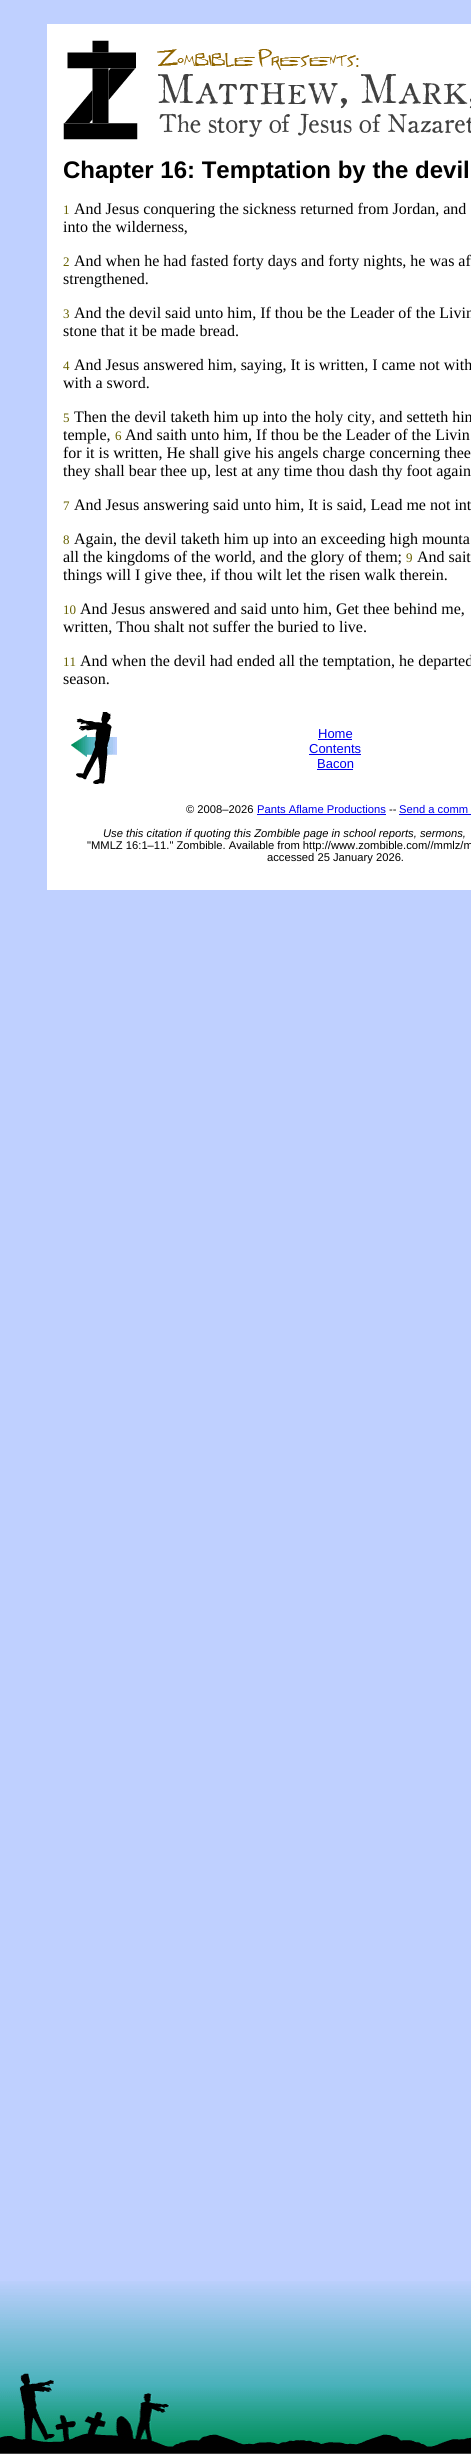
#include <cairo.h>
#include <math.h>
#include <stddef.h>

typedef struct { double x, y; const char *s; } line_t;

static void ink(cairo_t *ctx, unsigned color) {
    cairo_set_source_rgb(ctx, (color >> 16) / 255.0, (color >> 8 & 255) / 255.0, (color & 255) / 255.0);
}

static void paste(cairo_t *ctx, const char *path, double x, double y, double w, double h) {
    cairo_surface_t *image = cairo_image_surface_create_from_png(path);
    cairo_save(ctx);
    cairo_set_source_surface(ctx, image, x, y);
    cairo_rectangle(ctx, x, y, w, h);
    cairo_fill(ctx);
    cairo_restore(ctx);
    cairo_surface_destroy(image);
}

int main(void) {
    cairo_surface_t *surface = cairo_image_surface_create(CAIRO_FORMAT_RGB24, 471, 2454);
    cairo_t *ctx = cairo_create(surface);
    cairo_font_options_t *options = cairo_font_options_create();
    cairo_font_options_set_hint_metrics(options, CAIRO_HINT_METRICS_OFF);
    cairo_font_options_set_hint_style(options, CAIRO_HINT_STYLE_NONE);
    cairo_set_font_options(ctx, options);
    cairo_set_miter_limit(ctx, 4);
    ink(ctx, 0xBFD0FF);
    cairo_paint(ctx);
    paste(ctx, "media/1.png", 0, 2281, 471, 173);
    ink(ctx, 0xFFFFFF);
    cairo_rectangle(ctx, 47, 24, 424, 866);
    cairo_fill(ctx);
    paste(ctx, "media/2.png", 63, 40, 408, 100);
    cairo_select_font_face(ctx, "Liberation Sans", CAIRO_FONT_SLANT_NORMAL, CAIRO_FONT_WEIGHT_BOLD);
    cairo_set_font_size(ctx, 24);
    ink(ctx, 0x000000);
    cairo_move_to(ctx, 63, 178);
    cairo_show_text(ctx, "Chapter 16: Temptation by the devil");
    cairo_select_font_face(ctx, "Liberation Serif", CAIRO_FONT_SLANT_NORMAL, CAIRO_FONT_WEIGHT_NORMAL);
    cairo_set_font_size(ctx, 13);
    ink(ctx, 0x666000);
    cairo_move_to(ctx, 63, 214);
    cairo_show_text(ctx, "1");
    cairo_set_font_size(ctx, 16);
    ink(ctx, 0x000000);
    cairo_move_to(ctx, 74, 214);
    cairo_show_text(ctx, "And Jesus conquering the sickness returned from Jordan, and");
    cairo_move_to(ctx, 63, 232);
    cairo_show_text(ctx, "into the wilderness,");
    cairo_set_font_size(ctx, 13);
    ink(ctx, 0x666000);
    cairo_move_to(ctx, 63, 266);
    cairo_show_text(ctx, "2");
    cairo_set_font_size(ctx, 16);
    ink(ctx, 0x000000);
    cairo_move_to(ctx, 74, 266);
    cairo_show_text(ctx, "And when he had fasted forty days and forty nights, he was af");
    cairo_move_to(ctx, 63, 284);
    cairo_show_text(ctx, "strengthened.");
    cairo_set_font_size(ctx, 13);
    ink(ctx, 0x666000);
    cairo_move_to(ctx, 63, 318);
    cairo_show_text(ctx, "3");
    cairo_set_font_size(ctx, 16);
    ink(ctx, 0x000000);
    cairo_move_to(ctx, 74, 318);
    cairo_show_text(ctx, "And the devil said unto him, If thou be the Leader of the Livin");
    cairo_move_to(ctx, 63, 336);
    cairo_show_text(ctx, "stone that it be made bread.");
    cairo_set_font_size(ctx, 13);
    ink(ctx, 0x666000);
    cairo_move_to(ctx, 63, 370);
    cairo_show_text(ctx, "4");
    cairo_set_font_size(ctx, 16);
    ink(ctx, 0x000000);
    cairo_move_to(ctx, 74, 370);
    cairo_show_text(ctx, "And Jesus answered him, saying, It is written, I came not with");
    cairo_move_to(ctx, 63, 388);
    cairo_show_text(ctx, "with a sword.");
    cairo_set_font_size(ctx, 13);
    ink(ctx, 0x666000);
    cairo_move_to(ctx, 63, 422);
    cairo_show_text(ctx, "5");
    cairo_set_font_size(ctx, 16);
    ink(ctx, 0x000000);
    cairo_move_to(ctx, 74, 422);
    cairo_show_text(ctx, "Then the devil taketh him up into the holy city, and setteth him");
    cairo_move_to(ctx, 63, 440);
    cairo_show_text(ctx, "temple,");
    cairo_set_font_size(ctx, 13);
    ink(ctx, 0x666000);
    cairo_move_to(ctx, 115, 440);
    cairo_show_text(ctx, "6");
    cairo_set_font_size(ctx, 16);
    ink(ctx, 0x000000);
    {
        static const line_t items[] = {
            {125, 440, "And saith unto him, If thou be the Leader of the Livin"},
            {63, 458, "for it is written, He shall give his angels charge concerning thee"},
            {63, 476, "they shall bear thee up, lest at any time thou dash thy foot again"},
        };
        for (size_t i = 0; i < sizeof items / sizeof *items; i++) {
            cairo_move_to(ctx, items[i].x, items[i].y);
            cairo_show_text(ctx, items[i].s);
        }
    }
    cairo_set_font_size(ctx, 13);
    ink(ctx, 0x666000);
    cairo_move_to(ctx, 63, 510);
    cairo_show_text(ctx, "7");
    cairo_set_font_size(ctx, 16);
    ink(ctx, 0x000000);
    cairo_move_to(ctx, 74, 510);
    cairo_show_text(ctx, "And Jesus answering said unto him, It is said, Lead me not int");
    cairo_set_font_size(ctx, 13);
    ink(ctx, 0x666000);
    cairo_move_to(ctx, 63, 544);
    cairo_show_text(ctx, "8");
    cairo_set_font_size(ctx, 16);
    ink(ctx, 0x000000);
    cairo_move_to(ctx, 74, 544);
    cairo_show_text(ctx, "Again, the devil taketh him up into an exceeding high mounta");
    cairo_move_to(ctx, 63, 562);
    cairo_show_text(ctx, "all the kingdoms of the world, and the glory of them;");
    cairo_set_font_size(ctx, 13);
    ink(ctx, 0x666000);
    cairo_move_to(ctx, 406, 562);
    cairo_show_text(ctx, "9");
    cairo_set_font_size(ctx, 16);
    ink(ctx, 0x000000);
    cairo_move_to(ctx, 417, 562);
    cairo_show_text(ctx, "And sait");
    cairo_move_to(ctx, 63, 580);
    cairo_show_text(ctx, "things will I give thee, if thou wilt let the risen walk therein.");
    cairo_set_font_size(ctx, 13);
    ink(ctx, 0x666000);
    cairo_move_to(ctx, 63, 614);
    cairo_show_text(ctx, "10");
    cairo_set_font_size(ctx, 16);
    ink(ctx, 0x000000);
    cairo_move_to(ctx, 80, 614);
    cairo_show_text(ctx, "And Jesus answered and said unto him, Get thee behind me,");
    cairo_move_to(ctx, 63, 632);
    cairo_show_text(ctx, "written, Thou shalt not suffer the buried to live.");
    cairo_set_font_size(ctx, 13);
    ink(ctx, 0x666000);
    cairo_move_to(ctx, 63, 666);
    cairo_show_text(ctx, "11");
    cairo_set_font_size(ctx, 16);
    ink(ctx, 0x000000);
    cairo_move_to(ctx, 80, 666);
    cairo_show_text(ctx, "And when the devil had ended all the temptation, he departed");
    cairo_move_to(ctx, 63, 684);
    cairo_show_text(ctx, "season.");
    paste(ctx, "media/3.png", 71, 712, 46, 72);
    cairo_select_font_face(ctx, "Liberation Sans", CAIRO_FONT_SLANT_NORMAL, CAIRO_FONT_WEIGHT_NORMAL);
    cairo_set_font_size(ctx, 13);
    ink(ctx, 0x0000EE);
    cairo_move_to(ctx, 318, 738);
    cairo_show_text(ctx, "Home");
    cairo_rectangle(ctx, 318, 739, 34, 1);
    cairo_fill(ctx);
    cairo_move_to(ctx, 309, 753);
    cairo_show_text(ctx, "Contents");
    cairo_rectangle(ctx, 309, 754, 52, 1);
    cairo_fill(ctx);
    cairo_move_to(ctx, 317, 768);
    cairo_show_text(ctx, "Bacon");
    cairo_rectangle(ctx, 317, 769, 36, 1);
    cairo_fill(ctx);
    cairo_set_font_size(ctx, 11.2);
    ink(ctx, 0x000000);
    cairo_move_to(ctx, 186, 813);
    cairo_show_text(ctx, "© 2008–2026");
    ink(ctx, 0x0000EE);
    cairo_move_to(ctx, 257, 813);
    cairo_show_text(ctx, "Pants Aflame Productions");
    cairo_rectangle(ctx, 257, 814, 129, 1);
    cairo_fill(ctx);
    ink(ctx, 0x000000);
    cairo_move_to(ctx, 389, 813);
    cairo_show_text(ctx, "--");
    ink(ctx, 0x0000EE);
    cairo_move_to(ctx, 399, 813);
    cairo_show_text(ctx, "Send a comm");
    cairo_rectangle(ctx, 399, 814, 72, 1);
    cairo_fill(ctx);
    cairo_select_font_face(ctx, "Liberation Sans", CAIRO_FONT_SLANT_ITALIC, CAIRO_FONT_WEIGHT_NORMAL);
    ink(ctx, 0x000000);
    cairo_move_to(ctx, 103, 837);
    cairo_show_text(ctx, "Use this citation if quoting this Zombible page in school reports, sermons,");
    cairo_select_font_face(ctx, "Liberation Sans", CAIRO_FONT_SLANT_NORMAL, CAIRO_FONT_WEIGHT_NORMAL);
    cairo_move_to(ctx, 87, 849);
    cairo_show_text(ctx, "\"MMLZ 16:1–11.\" Zombible. Available from http://www.zombible.com//mmlz/m");
    cairo_move_to(ctx, 267, 861);
    cairo_show_text(ctx, "accessed 25 January 2026.");
    cairo_surface_write_to_png(surface, "image.png");
    cairo_font_options_destroy(options);
    cairo_destroy(ctx);
    cairo_surface_destroy(surface);
    return 0;
}
